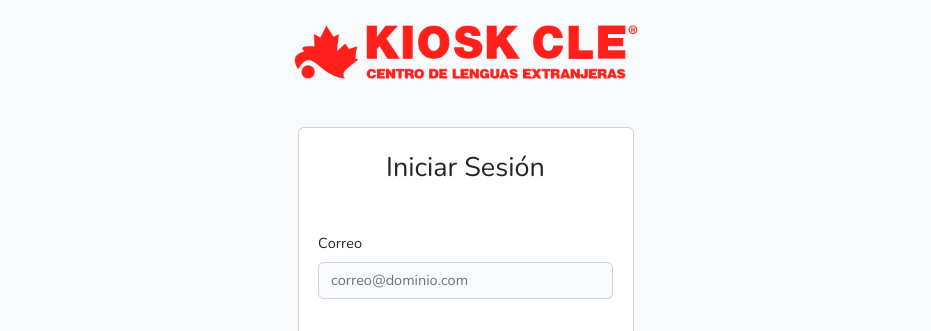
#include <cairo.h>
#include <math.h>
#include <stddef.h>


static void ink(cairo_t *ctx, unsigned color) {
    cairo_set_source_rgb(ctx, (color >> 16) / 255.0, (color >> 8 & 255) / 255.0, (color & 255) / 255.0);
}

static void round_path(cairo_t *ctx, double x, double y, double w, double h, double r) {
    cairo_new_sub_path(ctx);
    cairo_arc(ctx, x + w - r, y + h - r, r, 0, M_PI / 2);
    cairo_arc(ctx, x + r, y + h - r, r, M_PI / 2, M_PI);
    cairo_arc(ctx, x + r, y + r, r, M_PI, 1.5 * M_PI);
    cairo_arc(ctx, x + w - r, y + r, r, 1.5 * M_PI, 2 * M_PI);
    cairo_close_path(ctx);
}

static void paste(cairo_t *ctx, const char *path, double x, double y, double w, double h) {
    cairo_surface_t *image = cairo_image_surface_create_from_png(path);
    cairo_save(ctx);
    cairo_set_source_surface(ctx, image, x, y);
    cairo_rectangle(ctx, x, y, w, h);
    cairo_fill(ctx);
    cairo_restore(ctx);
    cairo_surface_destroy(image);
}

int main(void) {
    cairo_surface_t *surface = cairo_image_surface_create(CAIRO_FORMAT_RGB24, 931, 331);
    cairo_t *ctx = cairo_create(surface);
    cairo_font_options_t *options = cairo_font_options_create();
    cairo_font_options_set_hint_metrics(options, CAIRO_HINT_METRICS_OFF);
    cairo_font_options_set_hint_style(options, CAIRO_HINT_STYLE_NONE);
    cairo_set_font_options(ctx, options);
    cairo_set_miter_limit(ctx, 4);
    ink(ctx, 0xF8FAFC);
    cairo_paint(ctx);
    paste(ctx, "media/1.png", 294, 25, 344, 54);
    ink(ctx, 0xFFFFFF);
    round_path(ctx, 298.5, 127.5, 335, 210, 5.5);
    cairo_fill_preserve(ctx);
    ink(ctx, 0xD2D2D2);
    cairo_set_line_width(ctx, 1);
    cairo_stroke(ctx);
    cairo_select_font_face(ctx, "Nunito ExtraLight", CAIRO_FONT_SLANT_NORMAL, CAIRO_FONT_WEIGHT_NORMAL);
    cairo_set_font_size(ctx, 27);
    ink(ctx, 0x212529);
    cairo_move_to(ctx, 386, 176);
    cairo_show_text(ctx, "Iniciar Sesión");
    cairo_set_font_size(ctx, 14.5);
    cairo_move_to(ctx, 318, 248);
    cairo_show_text(ctx, "Correo");
    ink(ctx, 0xF8FAFC);
    round_path(ctx, 318.5, 262.5, 294, 36, 5.5);
    cairo_fill_preserve(ctx);
    ink(ctx, 0xCED4DA);
    cairo_stroke(ctx);
    ink(ctx, 0x6C757D);
    cairo_move_to(ctx, 331, 285);
    cairo_show_text(ctx, "correo@dominio.com");
    cairo_surface_write_to_png(surface, "image.png");
    cairo_font_options_destroy(options);
    cairo_destroy(ctx);
    cairo_surface_destroy(surface);
    return 0;
}
